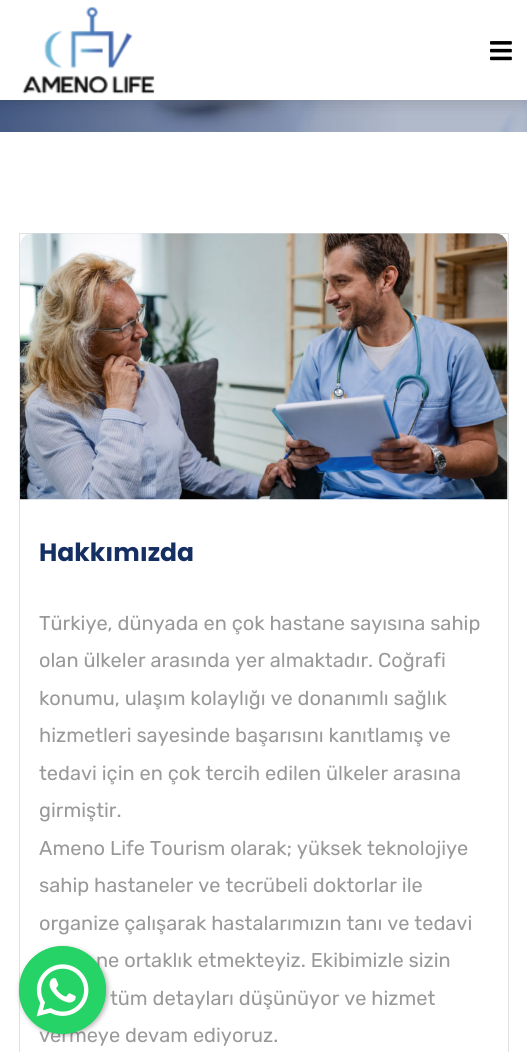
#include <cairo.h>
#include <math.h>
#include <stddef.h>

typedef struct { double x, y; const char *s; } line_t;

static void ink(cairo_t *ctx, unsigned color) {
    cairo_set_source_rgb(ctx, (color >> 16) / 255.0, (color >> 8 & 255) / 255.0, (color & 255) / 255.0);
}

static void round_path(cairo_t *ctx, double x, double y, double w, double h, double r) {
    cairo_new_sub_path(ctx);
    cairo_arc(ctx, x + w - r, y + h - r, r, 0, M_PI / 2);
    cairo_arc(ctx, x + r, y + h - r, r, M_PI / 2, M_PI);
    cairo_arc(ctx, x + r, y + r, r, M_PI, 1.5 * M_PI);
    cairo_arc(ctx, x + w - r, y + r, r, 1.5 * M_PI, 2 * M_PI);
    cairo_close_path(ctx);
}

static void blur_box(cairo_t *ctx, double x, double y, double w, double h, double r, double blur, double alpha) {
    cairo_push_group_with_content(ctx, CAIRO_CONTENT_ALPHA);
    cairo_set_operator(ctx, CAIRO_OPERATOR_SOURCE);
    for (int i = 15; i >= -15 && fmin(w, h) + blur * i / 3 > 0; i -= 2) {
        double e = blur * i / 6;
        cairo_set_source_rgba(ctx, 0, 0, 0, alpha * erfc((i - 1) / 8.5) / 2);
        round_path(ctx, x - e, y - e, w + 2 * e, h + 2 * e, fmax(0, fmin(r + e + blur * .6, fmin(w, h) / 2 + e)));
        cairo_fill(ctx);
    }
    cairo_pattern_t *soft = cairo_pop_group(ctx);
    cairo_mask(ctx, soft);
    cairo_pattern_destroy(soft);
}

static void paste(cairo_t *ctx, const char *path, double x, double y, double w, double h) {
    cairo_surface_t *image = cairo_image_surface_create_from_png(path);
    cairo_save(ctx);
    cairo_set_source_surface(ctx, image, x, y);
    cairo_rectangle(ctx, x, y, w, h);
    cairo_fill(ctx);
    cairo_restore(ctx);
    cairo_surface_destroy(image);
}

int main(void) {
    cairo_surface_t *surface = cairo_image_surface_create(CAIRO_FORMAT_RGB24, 527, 1052);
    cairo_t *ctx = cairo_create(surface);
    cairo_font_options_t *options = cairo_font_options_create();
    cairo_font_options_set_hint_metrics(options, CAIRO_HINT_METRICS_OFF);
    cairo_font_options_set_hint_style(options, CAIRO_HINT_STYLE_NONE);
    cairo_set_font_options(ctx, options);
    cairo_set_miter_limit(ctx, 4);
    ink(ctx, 0xFFFFFF);
    cairo_paint(ctx);
    paste(ctx, "media/3.png", 0, 100, 527, 32);
    ink(ctx, 0x000000);
    blur_box(ctx, 0, 0, 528, 100, 0, 9.5, 0.2);
    ink(ctx, 0xFFFFFF);
    cairo_rectangle(ctx, 0, 0, 527, 100);
    cairo_fill(ctx);
    paste(ctx, "media/1.png", 22, 7, 133, 87);
    paste(ctx, "media/2.png", 490, 41, 22, 20);
    cairo_rectangle(ctx, 19.5, 233.5, 489, 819);
    ink(ctx, 0xE0E0E0);
    cairo_set_line_width(ctx, 1);
    cairo_stroke(ctx);
    paste(ctx, "media/4.png", 20, 233, 488, 267);
    cairo_select_font_face(ctx, "Poppins", CAIRO_FONT_SLANT_NORMAL, CAIRO_FONT_WEIGHT_BOLD);
    cairo_set_font_size(ctx, 25);
    ink(ctx, 0x162F62);
    cairo_move_to(ctx, 39, 561);
    cairo_show_text(ctx, "Hakkımızda");
    cairo_select_font_face(ctx, "Rubik", CAIRO_FONT_SLANT_NORMAL, CAIRO_FONT_WEIGHT_NORMAL);
    cairo_set_font_size(ctx, 20);
    ink(ctx, 0x999999);
    {
        static const line_t items[] = {
            {39, 630, "Türkiye, dünyada en çok hastane sayısına sahip"},
            {39, 667, "olan ülkeler arasında yer almaktadır. Coğrafi"},
            {39, 705, "konumu, ulaşım kolaylığı ve donanımlı sağlık"},
            {39, 742, "hizmetleri sayesinde başarısını kanıtlamış ve"},
            {39, 780, "tedavi için en çok tercih edilen ülkeler arasına"},
            {39, 817, "girmiştir."},
            {39, 855, "Ameno Life Tourism olarak; yüksek teknolojiye"},
            {39, 892, "sahip hastaneler ve tecrübeli doktorlar ile"},
            {39, 930, "organize çalışarak hastalarımızın tanı ve tedavi"},
            {96, 967, "ne ortaklık etmekteyiz. Ekibimizle sizin"},
            {110, 1005, "tüm detayları düşünüyor ve hizmet"},
            {39, 1042, "vermeye devam ediyoruz."},
        };
        for (size_t i = 0; i < sizeof items / sizeof *items; i++) {
            cairo_move_to(ctx, items[i].x, items[i].y);
            cairo_show_text(ctx, items[i].s);
        }
    }
    ink(ctx, 0x3C3C3C);
    blur_box(ctx, 20, 948, 88, 87, 43.5, 2.5, 0.4);
    ink(ctx, 0x25D366);
    round_path(ctx, 19, 946, 87, 88, 43.5);
    cairo_fill(ctx);
    paste(ctx, "media/5.png", 19, 946, 87, 88);
    cairo_surface_write_to_png(surface, "image.png");
    cairo_font_options_destroy(options);
    cairo_destroy(ctx);
    cairo_surface_destroy(surface);
    return 0;
}
